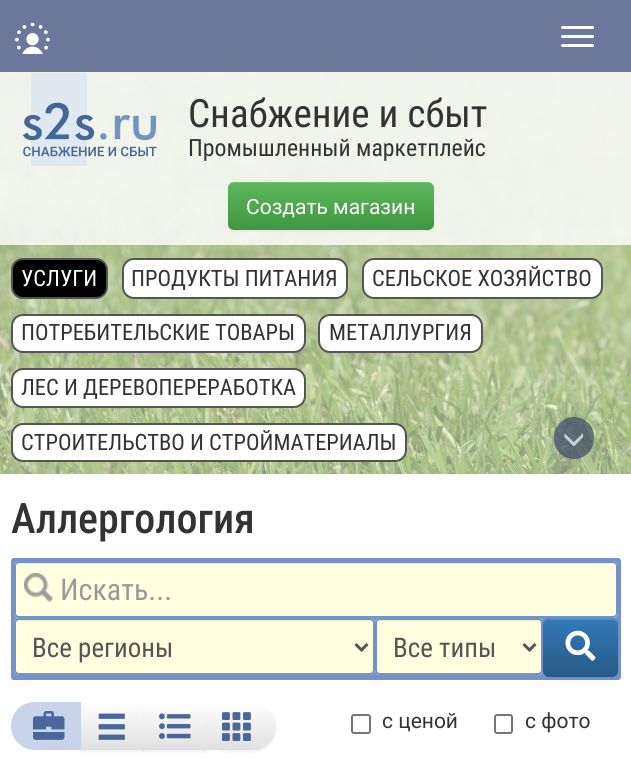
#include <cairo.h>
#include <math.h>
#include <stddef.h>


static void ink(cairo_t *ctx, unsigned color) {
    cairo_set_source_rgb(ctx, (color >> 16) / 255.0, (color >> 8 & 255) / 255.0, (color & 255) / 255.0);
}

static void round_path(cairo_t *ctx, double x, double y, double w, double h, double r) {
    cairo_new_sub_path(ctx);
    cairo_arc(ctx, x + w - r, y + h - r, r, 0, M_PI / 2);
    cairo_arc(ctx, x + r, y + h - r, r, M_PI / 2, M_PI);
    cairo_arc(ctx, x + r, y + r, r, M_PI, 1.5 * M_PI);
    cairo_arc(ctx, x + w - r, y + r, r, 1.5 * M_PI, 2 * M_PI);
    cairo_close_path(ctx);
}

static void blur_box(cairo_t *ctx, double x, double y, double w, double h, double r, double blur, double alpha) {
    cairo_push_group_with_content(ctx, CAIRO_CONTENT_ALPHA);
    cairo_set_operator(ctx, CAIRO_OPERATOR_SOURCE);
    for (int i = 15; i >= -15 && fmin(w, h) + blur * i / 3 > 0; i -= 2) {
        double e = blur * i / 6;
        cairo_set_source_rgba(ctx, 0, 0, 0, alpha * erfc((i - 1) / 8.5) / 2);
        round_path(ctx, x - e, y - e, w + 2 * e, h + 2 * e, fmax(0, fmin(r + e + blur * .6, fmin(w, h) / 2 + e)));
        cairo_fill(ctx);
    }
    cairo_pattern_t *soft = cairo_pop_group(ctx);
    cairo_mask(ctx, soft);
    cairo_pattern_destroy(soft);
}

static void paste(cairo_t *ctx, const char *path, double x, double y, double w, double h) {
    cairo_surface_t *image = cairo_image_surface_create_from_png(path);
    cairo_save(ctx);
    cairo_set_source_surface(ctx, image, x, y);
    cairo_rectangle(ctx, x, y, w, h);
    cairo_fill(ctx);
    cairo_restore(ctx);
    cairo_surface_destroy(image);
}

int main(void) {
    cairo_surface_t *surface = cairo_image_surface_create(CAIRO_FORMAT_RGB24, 631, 759);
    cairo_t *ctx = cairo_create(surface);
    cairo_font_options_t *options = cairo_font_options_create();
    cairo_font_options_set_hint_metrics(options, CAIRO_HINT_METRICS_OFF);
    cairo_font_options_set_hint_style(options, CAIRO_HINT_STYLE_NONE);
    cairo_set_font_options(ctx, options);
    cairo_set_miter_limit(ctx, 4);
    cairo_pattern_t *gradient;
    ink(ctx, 0xFFFFFF);
    cairo_paint(ctx);
    paste(ctx, "media/1.png", 0, 72, 631, 402);
    ink(ctx, 0x6B789C);
    cairo_rectangle(ctx, 0, 0, 631, 72);
    cairo_fill(ctx);
    paste(ctx, "media/2.png", 15, 23, 35, 31);
    ink(ctx, 0xFFFFFF);
    round_path(ctx, 561, 26, 33, 3, 1.5);
    cairo_fill(ctx);
    round_path(ctx, 561, 35, 33, 3, 1.5);
    cairo_fill(ctx);
    round_path(ctx, 561, 44, 33, 3, 1.5);
    cairo_fill(ctx);
    cairo_set_source_rgba(ctx, 1, 1, 1, 0.9);
    cairo_rectangle(ctx, 0, 72, 631, 173);
    cairo_fill(ctx);
    paste(ctx, "media/3.png", 23, 73, 134, 93);
    cairo_select_font_face(ctx, "Roboto Condensed", CAIRO_FONT_SLANT_NORMAL, CAIRO_FONT_WEIGHT_NORMAL);
    cairo_set_font_size(ctx, 39);
    ink(ctx, 0x333333);
    cairo_move_to(ctx, 188, 127);
    cairo_show_text(ctx, "Снабжение и сбыт");
    cairo_set_font_size(ctx, 23.8);
    cairo_move_to(ctx, 188, 156);
    cairo_show_text(ctx, "Промышленный маркетплейс");
    ink(ctx, 0x000000);
    blur_box(ctx, 228, 183, 206, 48, 6, 1, 0.07);
    gradient = cairo_pattern_create_linear(331, 182, 331, 230);
    cairo_pattern_add_color_stop_rgba(gradient, 0, 0.361, 0.722, 0.361, 1);
    cairo_pattern_add_color_stop_rgba(gradient, 1, 0.255, 0.588, 0.255, 1);
    cairo_set_source(ctx, gradient);
    cairo_pattern_destroy(gradient);
    round_path(ctx, 228, 182, 206, 48, 6);
    cairo_fill(ctx);
    cairo_set_source_rgba(ctx, 1, 1, 1, 0.15);
    cairo_new_path(ctx);
    cairo_move_to(ctx, 234, 183);
    cairo_line_to(ctx, 428, 183);
    cairo_curve_to(ctx, 431, 183, 434, 186, 434, 189);
    cairo_curve_to(ctx, 434, 186, 433, 183, 429, 182);
    cairo_line_to(ctx, 234, 182);
    cairo_curve_to(ctx, 230, 182, 228, 185, 228, 189);
    cairo_curve_to(ctx, 228, 186, 231, 183, 234, 183);
    cairo_close_path(ctx);
    cairo_fill(ctx);
    cairo_select_font_face(ctx, "Roboto", CAIRO_FONT_SLANT_NORMAL, CAIRO_FONT_WEIGHT_NORMAL);
    cairo_set_font_size(ctx, 21);
    ink(ctx, 0xFFFFFF);
    cairo_move_to(ctx, 246, 214);
    cairo_show_text(ctx, "Создать магазин");
    cairo_set_source_rgba(ctx, 1, 1, 1, 0.5);
    cairo_rectangle(ctx, 0, 245, 631, 229);
    cairo_fill(ctx);
    ink(ctx, 0x000000);
    round_path(ctx, 12, 259, 95, 39, 11);
    cairo_fill_preserve(ctx);
    ink(ctx, 0x555555);
    cairo_stroke(ctx);
    cairo_select_font_face(ctx, "Roboto Condensed", CAIRO_FONT_SLANT_NORMAL, CAIRO_FONT_WEIGHT_NORMAL);
    cairo_set_font_size(ctx, 22.5);
    ink(ctx, 0xFFFFFF);
    cairo_move_to(ctx, 21, 286);
    cairo_show_text(ctx, "УСЛУГИ");
    round_path(ctx, 123, 259, 224, 39, 11);
    cairo_fill_preserve(ctx);
    ink(ctx, 0x555555);
    cairo_stroke(ctx);
    ink(ctx, 0x333333);
    cairo_move_to(ctx, 131, 286);
    cairo_show_text(ctx, "ПРОДУКТЫ ПИТАНИЯ");
    ink(ctx, 0xFFFFFF);
    round_path(ctx, 363, 259, 239, 39, 11);
    cairo_fill_preserve(ctx);
    ink(ctx, 0x555555);
    cairo_stroke(ctx);
    ink(ctx, 0x333333);
    cairo_move_to(ctx, 372, 286);
    cairo_show_text(ctx, "СЕЛЬСКОЕ ХОЗЯЙСТВО");
    ink(ctx, 0xFFFFFF);
    round_path(ctx, 12, 315, 293, 37, 11);
    cairo_fill_preserve(ctx);
    ink(ctx, 0x555555);
    cairo_stroke(ctx);
    ink(ctx, 0x333333);
    cairo_move_to(ctx, 21, 340);
    cairo_show_text(ctx, "ПОТРЕБИТЕЛЬСКИЕ ТОВАРЫ");
    ink(ctx, 0xFFFFFF);
    round_path(ctx, 319, 315, 163, 37, 11);
    cairo_fill_preserve(ctx);
    ink(ctx, 0x555555);
    cairo_stroke(ctx);
    ink(ctx, 0x333333);
    cairo_move_to(ctx, 329, 340);
    cairo_show_text(ctx, "МЕТАЛЛУРГИЯ");
    ink(ctx, 0xFFFFFF);
    round_path(ctx, 12, 369, 293, 38, 11);
    cairo_fill_preserve(ctx);
    ink(ctx, 0x555555);
    cairo_stroke(ctx);
    ink(ctx, 0x333333);
    cairo_move_to(ctx, 21, 395);
    cairo_show_text(ctx, "ЛЕС И ДЕРЕВОПЕРЕРАБОТКА");
    ink(ctx, 0xFFFFFF);
    round_path(ctx, 12, 424, 394, 37, 11);
    cairo_fill_preserve(ctx);
    ink(ctx, 0x555555);
    cairo_stroke(ctx);
    ink(ctx, 0x333333);
    cairo_move_to(ctx, 21, 450);
    cairo_show_text(ctx, "СТРОИТЕЛЬСТВО И СТРОЙМАТЕРИАЛЫ");
    cairo_set_source_rgba(ctx, 0.235, 0.282, 0.412, 0.7);
    round_path(ctx, 554, 417, 40, 42, 20);
    cairo_fill(ctx);
    paste(ctx, "media/4.png", 564, 433, 20, 14);
    cairo_select_font_face(ctx, "Roboto Condensed Medium", CAIRO_FONT_SLANT_NORMAL, CAIRO_FONT_WEIGHT_NORMAL);
    cairo_set_font_size(ctx, 42);
    ink(ctx, 0x333333);
    cairo_move_to(ctx, 11, 533);
    cairo_show_text(ctx, "Аллергология");
    ink(ctx, 0x7492C9);
    round_path(ctx, 11, 558, 610, 122, 3);
    cairo_fill(ctx);
    ink(ctx, 0xFFFFE0);
    round_path(ctx, 14, 561, 604, 57, 5);
    cairo_fill(ctx);
    paste(ctx, "media/5.png", 24, 573, 29, 29);
    ink(ctx, 0xECECCF);
    cairo_new_path(ctx);
    cairo_move_to(ctx, 18, 564);
    cairo_line_to(ctx, 614, 564);
    cairo_curve_to(ctx, 615, 564, 616, 565, 616, 567);
    cairo_line_to(ctx, 616, 616);
    cairo_line_to(ctx, 617, 614);
    cairo_line_to(ctx, 617, 565);
    cairo_curve_to(ctx, 617, 564, 616, 563, 615, 563);
    cairo_line_to(ctx, 18, 563);
    cairo_curve_to(ctx, 16, 563, 15, 565, 15, 567);
    cairo_curve_to(ctx, 15, 565, 16, 564, 18, 564);
    cairo_close_path(ctx);
    cairo_fill(ctx);
    round_path(ctx, 15, 562, 602, 55, 4);
    ink(ctx, 0x7492C9);
    cairo_stroke(ctx);
    cairo_select_font_face(ctx, "Roboto Condensed", CAIRO_FONT_SLANT_NORMAL, CAIRO_FONT_WEIGHT_NORMAL);
    cairo_set_font_size(ctx, 30);
    ink(ctx, 0x999999);
    cairo_move_to(ctx, 60, 600);
    cairo_show_text(ctx, "Искать...");
    ink(ctx, 0xFFFFE0);
    round_path(ctx, 14, 618, 361, 57, 5);
    cairo_fill(ctx);
    ink(ctx, 0xECECCF);
    cairo_new_path(ctx);
    cairo_move_to(ctx, 18, 621);
    cairo_line_to(ctx, 370, 621);
    cairo_curve_to(ctx, 372, 621, 374, 622, 374, 624);
    cairo_curve_to(ctx, 374, 622, 373, 620, 371, 620);
    cairo_line_to(ctx, 18, 620);
    cairo_line_to(ctx, 16, 621);
    cairo_line_to(ctx, 15, 624);
    cairo_curve_to(ctx, 15, 622, 16, 621, 18, 621);
    cairo_close_path(ctx);
    cairo_fill(ctx);
    round_path(ctx, 15, 619, 359, 55, 4);
    ink(ctx, 0x7492C9);
    cairo_stroke(ctx);
    cairo_new_path(ctx);
    cairo_move_to(ctx, 355.5, 644);
    cairo_line_to(ctx, 361.5, 650);
    cairo_line_to(ctx, 367.5, 644);
    ink(ctx, 0x555555);
    cairo_set_line_width(ctx, 3);
    cairo_stroke(ctx);
    cairo_set_font_size(ctx, 27);
    cairo_move_to(ctx, 32, 657);
    cairo_show_text(ctx, "Все регионы");
    ink(ctx, 0xFFFFE0);
    round_path(ctx, 375, 618, 168, 57, 5);
    cairo_fill(ctx);
    ink(ctx, 0xECECCF);
    cairo_new_path(ctx);
    cairo_move_to(ctx, 380, 621);
    cairo_line_to(ctx, 538, 621);
    cairo_curve_to(ctx, 540, 621, 542, 622, 542, 624);
    cairo_curve_to(ctx, 542, 622, 541, 620, 539, 620);
    cairo_line_to(ctx, 380, 620);
    cairo_curve_to(ctx, 379, 620, 378, 621, 377, 622);
    cairo_close_path(ctx);
    cairo_fill(ctx);
    round_path(ctx, 376, 619, 166, 55, 4);
    ink(ctx, 0x7492C9);
    cairo_set_line_width(ctx, 2);
    cairo_stroke(ctx);
    cairo_new_path(ctx);
    cairo_move_to(ctx, 523.5, 644);
    cairo_line_to(ctx, 529.5, 650);
    cairo_line_to(ctx, 535.5, 644);
    ink(ctx, 0x555555);
    cairo_set_line_width(ctx, 3);
    cairo_stroke(ctx);
    cairo_move_to(ctx, 393, 657);
    cairo_show_text(ctx, "Все типы");
    ink(ctx, 0x000000);
    blur_box(ctx, 543, 620, 75, 58, 6, 1, 0.07);
    gradient = cairo_pattern_create_linear(581, 618, 581, 677);
    cairo_pattern_add_color_stop_rgba(gradient, 0, 0.2, 0.478, 0.718, 1);
    cairo_pattern_add_color_stop_rgba(gradient, 1, 0.149, 0.353, 0.533, 1);
    cairo_set_source(ctx, gradient);
    cairo_pattern_destroy(gradient);
    round_path(ctx, 543, 618, 75, 59, 6);
    cairo_fill(ctx);
    cairo_set_source_rgba(ctx, 1, 1, 1, 0.15);
    cairo_new_path(ctx);
    cairo_move_to(ctx, 549, 620);
    cairo_line_to(ctx, 612, 620);
    cairo_curve_to(ctx, 615, 620, 618, 622, 618, 626);
    cairo_curve_to(ctx, 618, 616, 610, 618, 602, 618);
    cairo_line_to(ctx, 560, 618);
    cairo_curve_to(ctx, 551, 618, 543, 616, 543, 626);
    cairo_curve_to(ctx, 543, 622, 546, 620, 549, 620);
    cairo_close_path(ctx);
    cairo_fill(ctx);
    paste(ctx, "media/6.png", 565, 630, 31, 31);
    ink(ctx, 0x000000);
    blur_box(ctx, 80, 704, 64, 48, 0, 1, 0.07);
    ink(ctx, 0xC8D4EA);
    cairo_new_path(ctx);
    cairo_move_to(ctx, 35, 702);
    cairo_line_to(ctx, 81, 702);
    cairo_line_to(ctx, 81, 750);
    cairo_line_to(ctx, 35, 750);
    cairo_curve_to(ctx, 21.5, 750, 11, 739.5, 11, 726);
    cairo_curve_to(ctx, 11, 712.5, 21.5, 702, 35, 702);
    cairo_close_path(ctx);
    cairo_fill(ctx);
    paste(ctx, "media/7.png", 33, 711, 32, 29);
    gradient = cairo_pattern_create_linear(112, 702, 112, 750);
    cairo_pattern_add_color_stop_rgba(gradient, 0, 1, 1, 1, 1);
    cairo_pattern_add_color_stop_rgba(gradient, 1, 0.878, 0.878, 0.878, 1);
    cairo_set_source(ctx, gradient);
    cairo_pattern_destroy(gradient);
    cairo_rectangle(ctx, 81, 703, 62, 47);
    cairo_fill(ctx);
    paste(ctx, "media/8.png", 98, 713, 27, 27);
    ink(ctx, 0x000000);
    blur_box(ctx, 143, 704, 64, 48, 0, 1, 0.07);
    gradient = cairo_pattern_create_linear(175, 702, 175, 750);
    cairo_pattern_add_color_stop_rgba(gradient, 0, 1, 1, 1, 1);
    cairo_pattern_add_color_stop_rgba(gradient, 1, 0.878, 0.878, 0.878, 1);
    cairo_set_source(ctx, gradient);
    cairo_pattern_destroy(gradient);
    cairo_rectangle(ctx, 143, 703, 63, 47);
    cairo_fill(ctx);
    paste(ctx, "media/9.png", 159, 713, 32, 26);
    ink(ctx, 0x000000);
    blur_box(ctx, 206, 704, 70, 48, 24, 1, 0.07);
    gradient = cairo_pattern_create_linear(241, 702, 241, 750);
    cairo_pattern_add_color_stop_rgba(gradient, 0, 1, 1, 1, 1);
    cairo_pattern_add_color_stop_rgba(gradient, 1, 0.878, 0.878, 0.878, 1);
    cairo_set_source(ctx, gradient);
    cairo_pattern_destroy(gradient);
    cairo_new_path(ctx);
    cairo_move_to(ctx, 206, 702);
    cairo_line_to(ctx, 252, 702);
    cairo_curve_to(ctx, 265.5, 702, 276, 712.5, 276, 726);
    cairo_curve_to(ctx, 276, 739.5, 265.5, 750, 252, 750);
    cairo_line_to(ctx, 206, 750);
    cairo_close_path(ctx);
    cairo_fill(ctx);
    paste(ctx, "media/10.png", 222, 712, 29, 29);
    round_path(ctx, 352, 715, 18, 18, 2);
    ink(ctx, 0x767676);
    cairo_set_line_width(ctx, 2);
    cairo_stroke(ctx);
    cairo_select_font_face(ctx, "Roboto", CAIRO_FONT_SLANT_NORMAL, CAIRO_FONT_WEIGHT_NORMAL);
    cairo_set_font_size(ctx, 21);
    ink(ctx, 0x333333);
    cairo_move_to(ctx, 382, 728);
    cairo_show_text(ctx, "с ценой");
    round_path(ctx, 495, 715, 17, 18, 2);
    ink(ctx, 0x767676);
    cairo_stroke(ctx);
    ink(ctx, 0x333333);
    cairo_move_to(ctx, 525, 728);
    cairo_show_text(ctx, "с фото");
    cairo_surface_write_to_png(surface, "image.png");
    cairo_font_options_destroy(options);
    cairo_destroy(ctx);
    cairo_surface_destroy(surface);
    return 0;
}
